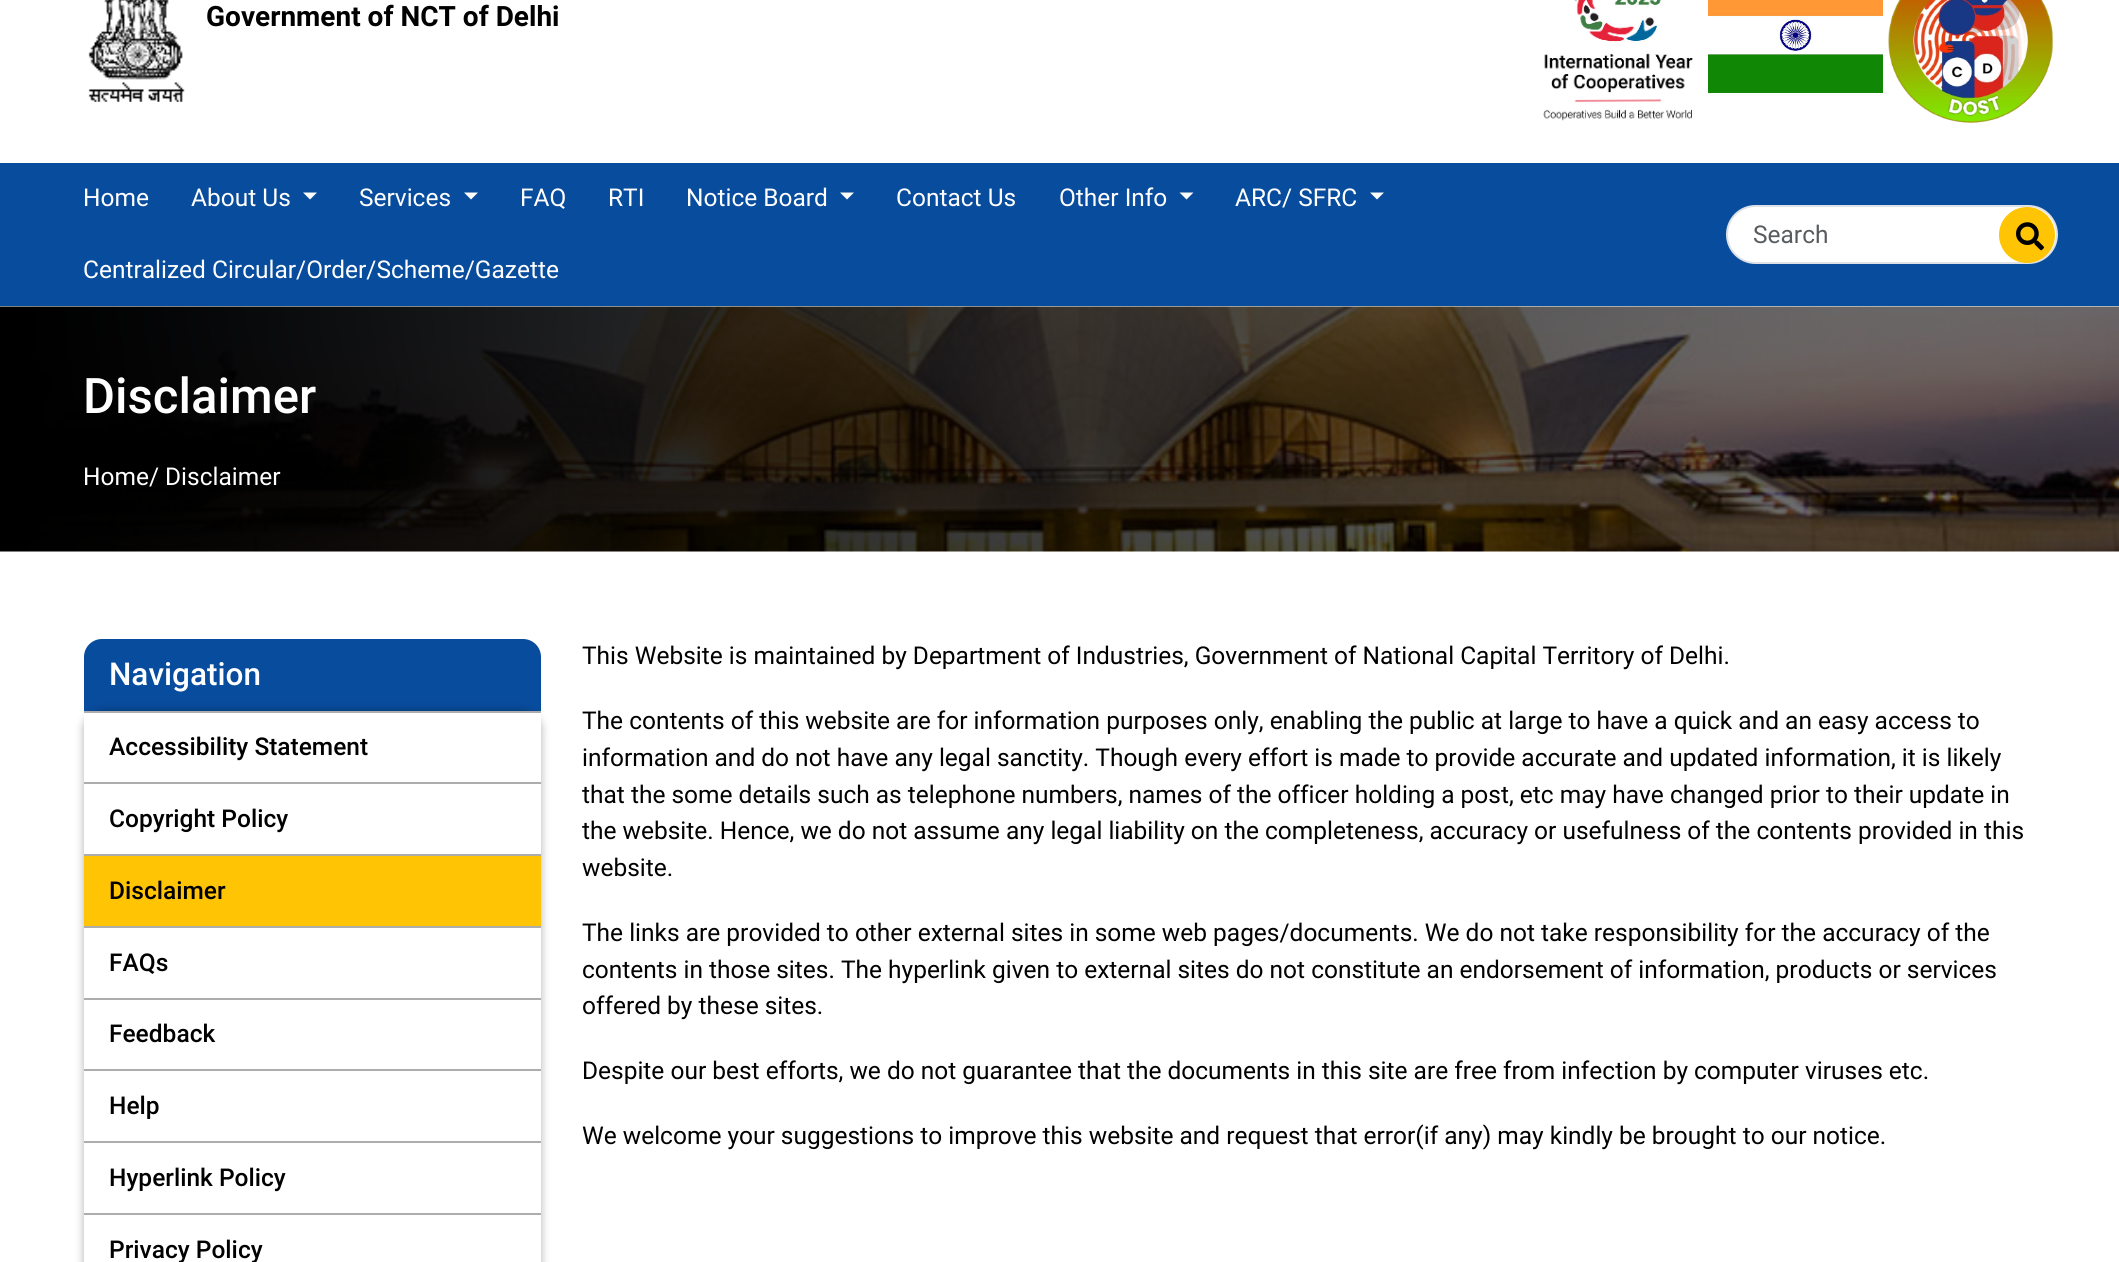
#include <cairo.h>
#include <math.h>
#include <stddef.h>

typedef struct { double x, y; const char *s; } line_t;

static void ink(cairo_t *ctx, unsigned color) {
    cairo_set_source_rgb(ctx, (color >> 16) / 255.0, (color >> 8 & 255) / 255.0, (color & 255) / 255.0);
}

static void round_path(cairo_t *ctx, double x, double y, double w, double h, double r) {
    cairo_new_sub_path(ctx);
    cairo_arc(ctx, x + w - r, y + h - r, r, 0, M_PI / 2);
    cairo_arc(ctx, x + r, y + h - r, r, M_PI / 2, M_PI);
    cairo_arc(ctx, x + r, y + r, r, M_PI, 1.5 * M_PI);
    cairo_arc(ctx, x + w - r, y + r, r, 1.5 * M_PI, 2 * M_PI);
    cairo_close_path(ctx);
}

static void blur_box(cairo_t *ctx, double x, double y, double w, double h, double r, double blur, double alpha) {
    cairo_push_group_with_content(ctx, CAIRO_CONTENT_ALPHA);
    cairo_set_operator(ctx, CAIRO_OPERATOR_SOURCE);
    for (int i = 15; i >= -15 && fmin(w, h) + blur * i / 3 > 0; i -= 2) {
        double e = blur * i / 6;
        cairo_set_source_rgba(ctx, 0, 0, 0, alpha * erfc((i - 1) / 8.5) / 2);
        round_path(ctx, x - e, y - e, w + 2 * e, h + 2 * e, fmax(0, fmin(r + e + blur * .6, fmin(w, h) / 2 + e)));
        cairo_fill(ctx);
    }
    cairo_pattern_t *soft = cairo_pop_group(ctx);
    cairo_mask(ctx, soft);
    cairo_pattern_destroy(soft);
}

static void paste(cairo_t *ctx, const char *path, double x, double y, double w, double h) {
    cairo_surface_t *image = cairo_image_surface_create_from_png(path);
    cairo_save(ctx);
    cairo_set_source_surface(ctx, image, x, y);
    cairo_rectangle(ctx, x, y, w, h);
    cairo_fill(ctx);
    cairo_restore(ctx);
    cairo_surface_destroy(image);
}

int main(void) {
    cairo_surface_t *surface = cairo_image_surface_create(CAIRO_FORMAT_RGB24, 2119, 1262);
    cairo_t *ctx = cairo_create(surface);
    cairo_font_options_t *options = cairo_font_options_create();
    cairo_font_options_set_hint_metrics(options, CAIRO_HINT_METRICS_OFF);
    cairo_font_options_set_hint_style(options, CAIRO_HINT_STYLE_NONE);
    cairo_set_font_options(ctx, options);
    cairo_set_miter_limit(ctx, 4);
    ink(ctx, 0xFFFFFF);
    cairo_paint(ctx);
    paste(ctx, "media/1.png", 88, 0, 97, 102);
    cairo_select_font_face(ctx, "Roboto", CAIRO_FONT_SLANT_NORMAL, CAIRO_FONT_WEIGHT_BOLD);
    cairo_set_font_size(ctx, 28);
    ink(ctx, 0x000000);
    cairo_move_to(ctx, 206, 26);
    cairo_show_text(ctx, "Government of NCT of Delhi");
    paste(ctx, "media/2.png", 1543, 0, 150, 121);
    paste(ctx, "media/3.png", 1708, 0, 175, 93);
    paste(ctx, "media/4.png", 1888, 0, 165, 123);
    ink(ctx, 0x084C9D);
    cairo_rectangle(ctx, 0, 163, 2119, 143);
    cairo_fill(ctx);
    cairo_select_font_face(ctx, "Roboto", CAIRO_FONT_SLANT_NORMAL, CAIRO_FONT_WEIGHT_NORMAL);
    cairo_set_font_size(ctx, 24.5);
    ink(ctx, 0xFFFFFF);
    cairo_move_to(ctx, 83, 206);
    cairo_show_text(ctx, "Home");
    cairo_move_to(ctx, 191, 206);
    cairo_show_text(ctx, "About Us");
    cairo_new_path(ctx);
    cairo_move_to(ctx, 303, 192.5);
    cairo_line_to(ctx, 317, 192.5);
    cairo_line_to(ctx, 310, 199.5);
    cairo_close_path(ctx);
    cairo_fill(ctx);
    cairo_move_to(ctx, 359, 206);
    cairo_show_text(ctx, "Services");
    cairo_new_path(ctx);
    cairo_move_to(ctx, 464, 192.5);
    cairo_line_to(ctx, 478, 192.5);
    cairo_line_to(ctx, 471, 199.5);
    cairo_close_path(ctx);
    cairo_fill(ctx);
    {
        static const line_t items[] = {
            {520, 206, "FAQ"},
            {608, 206, "RTI"},
            {686, 206, "Notice Board"},
        };
        for (size_t i = 0; i < sizeof items / sizeof *items; i++) {
            cairo_move_to(ctx, items[i].x, items[i].y);
            cairo_show_text(ctx, items[i].s);
        }
    }
    cairo_new_path(ctx);
    cairo_move_to(ctx, 840, 192.5);
    cairo_line_to(ctx, 854, 192.5);
    cairo_line_to(ctx, 847, 199.5);
    cairo_close_path(ctx);
    cairo_fill(ctx);
    cairo_move_to(ctx, 896, 206);
    cairo_show_text(ctx, "Contact Us");
    cairo_move_to(ctx, 1059, 206);
    cairo_show_text(ctx, "Other Info");
    cairo_new_path(ctx);
    cairo_move_to(ctx, 1179.5, 192.5);
    cairo_line_to(ctx, 1193.5, 192.5);
    cairo_line_to(ctx, 1186.5, 199.5);
    cairo_close_path(ctx);
    cairo_fill(ctx);
    cairo_move_to(ctx, 1235, 206);
    cairo_show_text(ctx, "ARC/ SFRC");
    cairo_new_path(ctx);
    cairo_move_to(ctx, 1370, 192.5);
    cairo_line_to(ctx, 1384, 192.5);
    cairo_line_to(ctx, 1377, 199.5);
    cairo_close_path(ctx);
    cairo_fill(ctx);
    cairo_move_to(ctx, 83, 278);
    cairo_show_text(ctx, "Centralized Circular/Order/Scheme/Gazette");
    round_path(ctx, 1727, 206, 330, 57, 28.5);
    cairo_fill_preserve(ctx);
    ink(ctx, 0xDEE2E6);
    cairo_stroke(ctx);
    ink(ctx, 0x595C5F);
    cairo_move_to(ctx, 1753, 243);
    cairo_show_text(ctx, "Search");
    ink(ctx, 0xFFC404);
    cairo_new_path(ctx);
    cairo_arc(ctx, 2027, 235, 28, 0, 2 * M_PI);
    cairo_fill(ctx);
    paste(ctx, "media/5.png", 2016, 222, 28, 29);
    paste(ctx, "media/6.png", 0, 306, 2119, 246);
    cairo_select_font_face(ctx, "Roboto Medium", CAIRO_FONT_SLANT_NORMAL, CAIRO_FONT_WEIGHT_NORMAL);
    cairo_set_font_size(ctx, 49);
    ink(ctx, 0xFFFFFF);
    cairo_move_to(ctx, 83, 413);
    cairo_show_text(ctx, "Disclaimer");
    cairo_select_font_face(ctx, "Roboto", CAIRO_FONT_SLANT_NORMAL, CAIRO_FONT_WEIGHT_NORMAL);
    cairo_set_font_size(ctx, 24.5);
    cairo_move_to(ctx, 83, 485);
    cairo_show_text(ctx, "Home/ Disclaimer");
    ink(ctx, 0x084C9D);
    cairo_new_path(ctx);
    cairo_move_to(ctx, 102, 639);
    cairo_line_to(ctx, 523, 639);
    cairo_curve_to(ctx, 533, 639, 541, 647, 541, 657);
    cairo_line_to(ctx, 541, 711);
    cairo_line_to(ctx, 84, 711);
    cairo_line_to(ctx, 84, 657);
    cairo_curve_to(ctx, 84, 647, 92, 639, 102, 639);
    cairo_close_path(ctx);
    cairo_fill(ctx);
    cairo_select_font_face(ctx, "Roboto Medium", CAIRO_FONT_SLANT_NORMAL, CAIRO_FONT_WEIGHT_NORMAL);
    cairo_set_font_size(ctx, 31.5);
    ink(ctx, 0xFFFFFF);
    cairo_move_to(ctx, 109, 685);
    cairo_show_text(ctx, "Navigation");
    ink(ctx, 0x000000);
    blur_box(ctx, 84, 711, 457, 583, 18, 4.5, 0.31);
    ink(ctx, 0xFFFFFF);
    cairo_rectangle(ctx, 84, 713, 457, 549);
    cairo_fill(ctx);
    ink(ctx, 0xADADAD);
    cairo_rectangle(ctx, 84, 711, 457, 2);
    cairo_fill(ctx);
    cairo_set_font_size(ctx, 24.5);
    ink(ctx, 0x000000);
    cairo_move_to(ctx, 109, 755);
    cairo_show_text(ctx, "Accessibility Statement");
    ink(ctx, 0xADADAD);
    cairo_rectangle(ctx, 84, 782, 457, 2);
    cairo_fill(ctx);
    ink(ctx, 0x000000);
    cairo_move_to(ctx, 109, 827);
    cairo_show_text(ctx, "Copyright Policy");
    ink(ctx, 0xFFC404);
    cairo_rectangle(ctx, 84, 856, 457, 70);
    cairo_fill(ctx);
    ink(ctx, 0xADADAD);
    cairo_rectangle(ctx, 84, 854, 457, 2);
    cairo_fill(ctx);
    ink(ctx, 0x000000);
    cairo_move_to(ctx, 109, 899);
    cairo_show_text(ctx, "Disclaimer");
    ink(ctx, 0xADADAD);
    cairo_rectangle(ctx, 84, 926, 457, 2);
    cairo_fill(ctx);
    ink(ctx, 0x000000);
    cairo_move_to(ctx, 109, 971);
    cairo_show_text(ctx, "FAQs");
    ink(ctx, 0xADADAD);
    cairo_rectangle(ctx, 84, 998, 457, 2);
    cairo_fill(ctx);
    ink(ctx, 0x000000);
    cairo_move_to(ctx, 109, 1042);
    cairo_show_text(ctx, "Feedback");
    ink(ctx, 0xADADAD);
    cairo_rectangle(ctx, 84, 1069, 457, 2);
    cairo_fill(ctx);
    ink(ctx, 0x000000);
    cairo_move_to(ctx, 109, 1114);
    cairo_show_text(ctx, "Help");
    ink(ctx, 0xADADAD);
    cairo_rectangle(ctx, 84, 1141, 457, 2);
    cairo_fill(ctx);
    ink(ctx, 0x000000);
    cairo_move_to(ctx, 109, 1186);
    cairo_show_text(ctx, "Hyperlink Policy");
    ink(ctx, 0xADADAD);
    cairo_rectangle(ctx, 84, 1213, 457, 2);
    cairo_fill(ctx);
    ink(ctx, 0x000000);
    cairo_move_to(ctx, 109, 1258);
    cairo_show_text(ctx, "Privacy Policy");
    cairo_select_font_face(ctx, "Roboto", CAIRO_FONT_SLANT_NORMAL, CAIRO_FONT_WEIGHT_NORMAL);
    {
        static const line_t items[] = {
            {582, 664, "This Website is maintained by Department of Industries, Government of National Capital Territory of Delhi."},
            {582, 729, "The contents of this website are for information purposes only, enabling the public at large to have a quick and an easy access to"},
            {582, 766, "information and do not have any legal sanctity. Though every effort is made to provide accurate and updated information, it is likely"},
            {582, 803, "that the some details such as telephone numbers, names of the officer holding a post, etc may have changed prior to their update in"},
            {582, 839, "the website. Hence, we do not assume any legal liability on the completeness, accuracy or usefulness of the contents provided in this"},
            {582, 876, "website."},
            {582, 941, "The links are provided to other external sites in some web pages/documents. We do not take responsibility for the accuracy of the"},
            {582, 978, "contents in those sites. The hyperlink given to external sites do not constitute an endorsement of information, products or services"},
            {582, 1014, "offered by these sites."},
            {582, 1079, "Despite our best efforts, we do not guarantee that the documents in this site are free from infection by computer viruses etc."},
            {582, 1144, "We welcome your suggestions to improve this website and request that error(if any) may kindly be brought to our notice."},
        };
        for (size_t i = 0; i < sizeof items / sizeof *items; i++) {
            cairo_move_to(ctx, items[i].x, items[i].y);
            cairo_show_text(ctx, items[i].s);
        }
    }
    cairo_surface_write_to_png(surface, "image.png");
    cairo_font_options_destroy(options);
    cairo_destroy(ctx);
    cairo_surface_destroy(surface);
    return 0;
}
